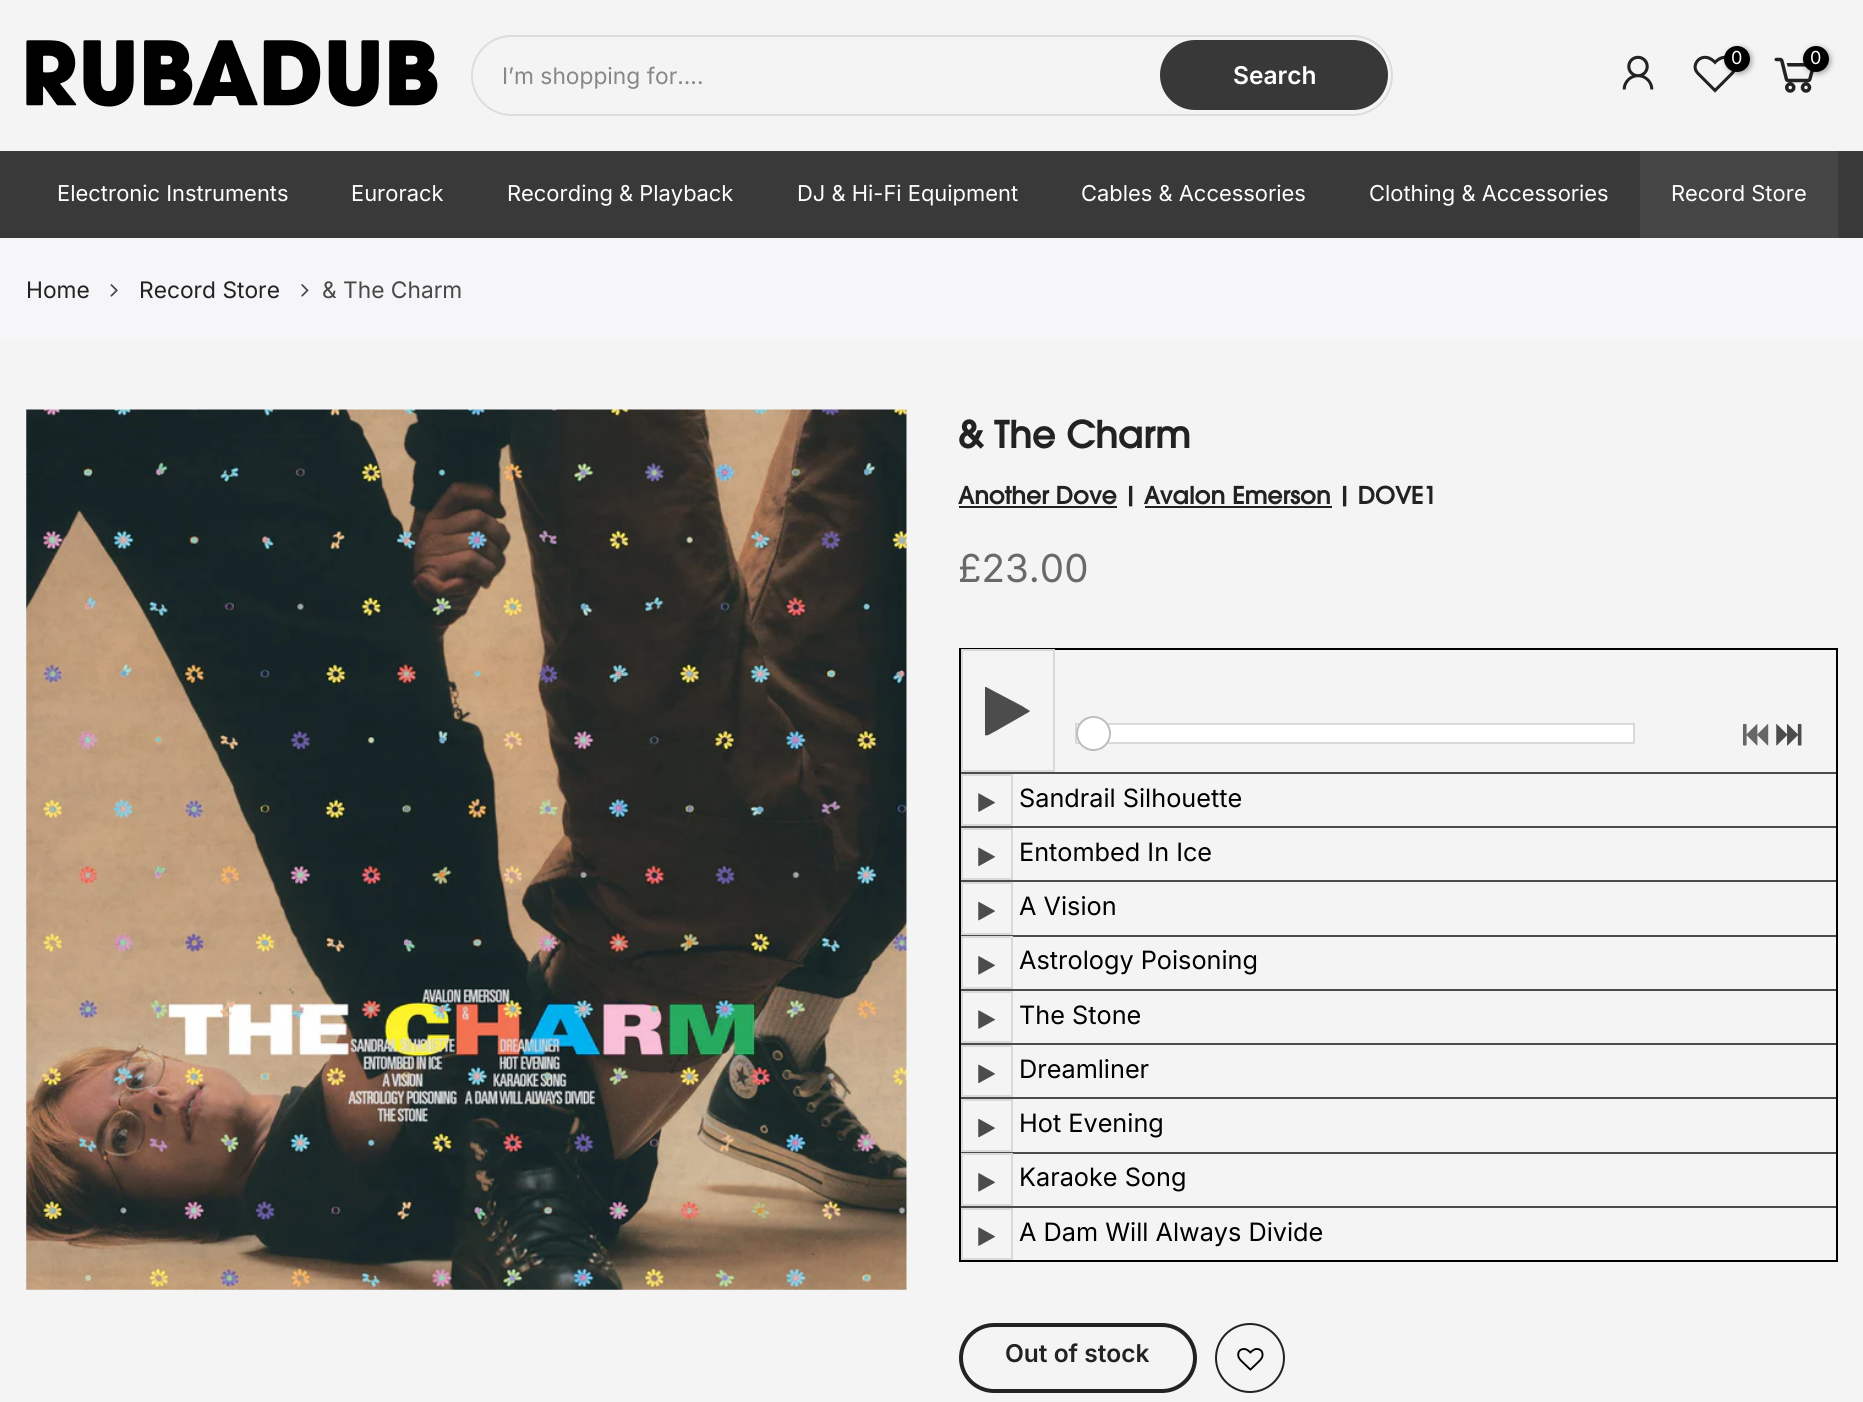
#include <cairo.h>
#include <math.h>
#include <stddef.h>

typedef struct { double x, y; const char *s; } line_t;

static void ink(cairo_t *ctx, unsigned color) {
    cairo_set_source_rgb(ctx, (color >> 16) / 255.0, (color >> 8 & 255) / 255.0, (color & 255) / 255.0);
}

static void round_path(cairo_t *ctx, double x, double y, double w, double h, double r) {
    cairo_new_sub_path(ctx);
    cairo_arc(ctx, x + w - r, y + h - r, r, 0, M_PI / 2);
    cairo_arc(ctx, x + r, y + h - r, r, M_PI / 2, M_PI);
    cairo_arc(ctx, x + r, y + r, r, M_PI, 1.5 * M_PI);
    cairo_arc(ctx, x + w - r, y + r, r, 1.5 * M_PI, 2 * M_PI);
    cairo_close_path(ctx);
}

static void blur_box(cairo_t *ctx, double x, double y, double w, double h, double r, double blur, double alpha) {
    cairo_push_group_with_content(ctx, CAIRO_CONTENT_ALPHA);
    cairo_set_operator(ctx, CAIRO_OPERATOR_SOURCE);
    for (int i = 15; i >= -15 && fmin(w, h) + blur * i / 3 > 0; i -= 2) {
        double e = blur * i / 6;
        cairo_set_source_rgba(ctx, 0, 0, 0, alpha * erfc((i - 1) / 8.5) / 2);
        round_path(ctx, x - e, y - e, w + 2 * e, h + 2 * e, fmax(0, fmin(r + e + blur * .6, fmin(w, h) / 2 + e)));
        cairo_fill(ctx);
    }
    cairo_pattern_t *soft = cairo_pop_group(ctx);
    cairo_mask(ctx, soft);
    cairo_pattern_destroy(soft);
}

static void paste(cairo_t *ctx, const char *path, double x, double y, double w, double h) {
    cairo_surface_t *image = cairo_image_surface_create_from_png(path);
    cairo_save(ctx);
    cairo_set_source_surface(ctx, image, x, y);
    cairo_rectangle(ctx, x, y, w, h);
    cairo_fill(ctx);
    cairo_restore(ctx);
    cairo_surface_destroy(image);
}

int main(void) {
    cairo_surface_t *surface = cairo_image_surface_create(CAIRO_FORMAT_RGB24, 1863, 1402);
    cairo_t *ctx = cairo_create(surface);
    cairo_font_options_t *options = cairo_font_options_create();
    cairo_font_options_set_hint_metrics(options, CAIRO_HINT_METRICS_OFF);
    cairo_font_options_set_hint_style(options, CAIRO_HINT_STYLE_NONE);
    cairo_set_font_options(ctx, options);
    cairo_set_miter_limit(ctx, 4);
    ink(ctx, 0xF4F4F4);
    cairo_paint(ctx);
    paste(ctx, "media/1.png", 26, 40, 412, 67);
    paste(ctx, "media/2.png", 1622, 55, 32, 35);
    paste(ctx, "media/3.png", 1693, 55, 43, 38);
    ink(ctx, 0x000000);
    blur_box(ctx, 1726, 47, 26, 27, 13, 2.5, 0.3);
    ink(ctx, 0x000000);
    cairo_arc(ctx, 1737, 59, 13, 0, 2 * M_PI);
    cairo_fill(ctx);
    cairo_select_font_face(ctx, "Inter", CAIRO_FONT_SLANT_NORMAL, CAIRO_FONT_WEIGHT_NORMAL);
    cairo_set_font_size(ctx, 18);
    ink(ctx, 0xFFFFFF);
    cairo_move_to(ctx, 1731, 64);
    cairo_show_text(ctx, "0");
    paste(ctx, "media/4.png", 1774, 57, 40, 36);
    ink(ctx, 0x000000);
    blur_box(ctx, 1804, 47, 27, 27, 13.5, 2.5, 0.3);
    ink(ctx, 0x000000);
    cairo_arc(ctx, 1816, 59, 13, 0, 2 * M_PI);
    cairo_fill(ctx);
    ink(ctx, 0xFFFFFF);
    cairo_move_to(ctx, 1810, 64);
    cairo_show_text(ctx, "0");
    round_path(ctx, 472, 36, 920, 79, 39.5);
    ink(ctx, 0xDDDDDD);
    cairo_stroke(ctx);
    cairo_set_font_size(ctx, 22.75);
    ink(ctx, 0x878787);
    cairo_move_to(ctx, 502, 84);
    cairo_show_text(ctx, "I’m shopping for....");
    ink(ctx, 0x383838);
    round_path(ctx, 1160, 40, 228, 70, 35);
    cairo_fill(ctx);
    cairo_select_font_face(ctx, "Inter SemiBold", CAIRO_FONT_SLANT_NORMAL, CAIRO_FONT_WEIGHT_NORMAL);
    cairo_set_font_size(ctx, 24.5);
    ink(ctx, 0xFFFFFF);
    cairo_move_to(ctx, 1233, 84);
    cairo_show_text(ctx, "Search");
    ink(ctx, 0x393939);
    cairo_rectangle(ctx, 0, 151, 1863, 87);
    cairo_fill(ctx);
    cairo_select_font_face(ctx, "Inter", CAIRO_FONT_SLANT_NORMAL, CAIRO_FONT_WEIGHT_NORMAL);
    cairo_set_font_size(ctx, 21.9);
    ink(ctx, 0xFFFFFF);
    {
        static const line_t items[] = {
            {57, 201, "Electronic Instruments"},
            {351, 201, "Eurorack"},
            {507, 201, "Recording & Playback"},
            {797, 201, "DJ & Hi-Fi Equipment"},
            {1081, 201, "Cables & Accessories"},
            {1369, 201, "Clothing & Accessories"},
        };
        for (size_t i = 0; i < sizeof items / sizeof *items; i++) {
            cairo_move_to(ctx, items[i].x, items[i].y);
            cairo_show_text(ctx, items[i].s);
        }
    }
    ink(ctx, 0x454545);
    cairo_rectangle(ctx, 1640, 151, 198, 87);
    cairo_fill(ctx);
    ink(ctx, 0xFFFFFF);
    cairo_move_to(ctx, 1671, 201);
    cairo_show_text(ctx, "Record Store");
    ink(ctx, 0xF6F6F8);
    cairo_rectangle(ctx, 0, 238, 1863, 102);
    cairo_fill(ctx);
    cairo_set_font_size(ctx, 22.75);
    ink(ctx, 0x222222);
    cairo_move_to(ctx, 26, 298);
    cairo_show_text(ctx, "Home");
    paste(ctx, "media/5.png", 110, 284, 8, 13);
    cairo_move_to(ctx, 139, 298);
    cairo_show_text(ctx, "Record Store");
    paste(ctx, "media/6.png", 301, 284, 8, 13);
    ink(ctx, 0x484848);
    cairo_move_to(ctx, 322, 298);
    cairo_show_text(ctx, "& The Charm");
    paste(ctx, "media/7.png", 26, 409, 881, 881);
    cairo_select_font_face(ctx, "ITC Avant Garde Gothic", CAIRO_FONT_SLANT_NORMAL, CAIRO_FONT_WEIGHT_BOLD);
    cairo_set_font_size(ctx, 36.75);
    ink(ctx, 0x222222);
    cairo_move_to(ctx, 958, 448);
    cairo_show_text(ctx, "& The Charm");
    cairo_rectangle(ctx, 959, 506, 158, 2);
    cairo_fill(ctx);
    cairo_set_font_size(ctx, 23.6);
    cairo_move_to(ctx, 958, 504);
    cairo_show_text(ctx, "Another Dove | Avalon Emerson | DOVE1");
    cairo_rectangle(ctx, 1145, 506, 187, 2);
    cairo_fill(ctx);
    cairo_select_font_face(ctx, "Inter", CAIRO_FONT_SLANT_NORMAL, CAIRO_FONT_WEIGHT_NORMAL);
    cairo_set_font_size(ctx, 38.5);
    ink(ctx, 0x696969);
    cairo_move_to(ctx, 958, 582);
    cairo_show_text(ctx, "£23.00");
    cairo_rectangle(ctx, 960, 649, 877, 612);
    ink(ctx, 0x000000);
    cairo_stroke(ctx);
    cairo_rectangle(ctx, 962, 650, 92, 121);
    ink(ctx, 0xD9D9D9);
    cairo_stroke(ctx);
    ink(ctx, 0x4C4C4C);
    cairo_new_path(ctx);
    cairo_move_to(ctx, 1029, 712);
    cairo_line_to(ctx, 994, 732);
    cairo_curve_to(ctx, 993, 732, 987, 737, 985, 735);
    cairo_line_to(ctx, 985, 687);
    cairo_line_to(ctx, 986, 687);
    cairo_line_to(ctx, 1022, 706);
    cairo_line_to(ctx, 1030, 711);
    cairo_close_path(ctx);
    cairo_fill(ctx);
    ink(ctx, 0xFFFFFF);
    cairo_rectangle(ctx, 1076, 724, 558, 19);
    cairo_fill_preserve(ctx);
    ink(ctx, 0xD9D9D9);
    cairo_stroke(ctx);
    ink(ctx, 0xFFFFFF);
    cairo_arc(ctx, 1093.5, 733.5, 16.5, 0, 2 * M_PI);
    cairo_fill_preserve(ctx);
    ink(ctx, 0xBEBEBE);
    cairo_stroke(ctx);
    paste(ctx, "media/8.png", 1743, 723, 26, 23);
    paste(ctx, "media/9.png", 1776, 723, 26, 23);
    ink(ctx, 0x4C4C4C);
    cairo_rectangle(ctx, 961, 772, 875, 2);
    cairo_fill(ctx);
    cairo_rectangle(ctx, 962, 775, 50, 50);
    ink(ctx, 0xD9D9D9);
    cairo_stroke(ctx);
    paste(ctx, "media/10.png", 978, 793, 17, 19);
    cairo_set_font_size(ctx, 25.25);
    ink(ctx, 0x000000);
    cairo_move_to(ctx, 1019, 807);
    cairo_show_text(ctx, "Sandrail Silhouette");
    ink(ctx, 0x4C4C4C);
    cairo_rectangle(ctx, 961, 826, 875, 2);
    cairo_fill(ctx);
    cairo_rectangle(ctx, 962, 829, 50, 50);
    ink(ctx, 0xD9D9D9);
    cairo_stroke(ctx);
    paste(ctx, "media/11.png", 978, 847, 17, 20);
    ink(ctx, 0x000000);
    cairo_move_to(ctx, 1019, 861);
    cairo_show_text(ctx, "Entombed In Ice");
    ink(ctx, 0x4C4C4C);
    cairo_rectangle(ctx, 961, 880, 875, 2);
    cairo_fill(ctx);
    cairo_rectangle(ctx, 962, 883, 50, 51);
    ink(ctx, 0xD9D9D9);
    cairo_stroke(ctx);
    paste(ctx, "media/12.png", 978, 901, 17, 20);
    ink(ctx, 0x000000);
    cairo_move_to(ctx, 1019, 915);
    cairo_show_text(ctx, "A Vision");
    ink(ctx, 0x4C4C4C);
    cairo_rectangle(ctx, 961, 935, 875, 2);
    cairo_fill(ctx);
    cairo_rectangle(ctx, 962, 937, 50, 51);
    ink(ctx, 0xD9D9D9);
    cairo_stroke(ctx);
    paste(ctx, "media/13.png", 978, 956, 17, 19);
    ink(ctx, 0x000000);
    cairo_move_to(ctx, 1019, 969);
    cairo_show_text(ctx, "Astrology Poisoning");
    ink(ctx, 0x4C4C4C);
    cairo_rectangle(ctx, 961, 989, 875, 2);
    cairo_fill(ctx);
    cairo_rectangle(ctx, 962, 992, 50, 50);
    ink(ctx, 0xD9D9D9);
    cairo_stroke(ctx);
    paste(ctx, "media/10.png", 978, 1010, 17, 19);
    ink(ctx, 0x000000);
    cairo_move_to(ctx, 1019, 1024);
    cairo_show_text(ctx, "The Stone");
    ink(ctx, 0x4C4C4C);
    cairo_rectangle(ctx, 961, 1043, 875, 2);
    cairo_fill(ctx);
    cairo_rectangle(ctx, 962, 1046, 50, 50);
    ink(ctx, 0xD9D9D9);
    cairo_stroke(ctx);
    paste(ctx, "media/11.png", 978, 1064, 17, 20);
    ink(ctx, 0x000000);
    cairo_move_to(ctx, 1019, 1078);
    cairo_show_text(ctx, "Dreamliner");
    ink(ctx, 0x4C4C4C);
    cairo_rectangle(ctx, 961, 1097, 875, 2);
    cairo_fill(ctx);
    cairo_rectangle(ctx, 962, 1100, 50, 51);
    ink(ctx, 0xD9D9D9);
    cairo_stroke(ctx);
    paste(ctx, "media/12.png", 978, 1118, 17, 20);
    ink(ctx, 0x000000);
    cairo_move_to(ctx, 1019, 1132);
    cairo_show_text(ctx, "Hot Evening");
    ink(ctx, 0x4C4C4C);
    cairo_rectangle(ctx, 961, 1152, 875, 2);
    cairo_fill(ctx);
    cairo_rectangle(ctx, 962, 1154, 50, 51);
    ink(ctx, 0xD9D9D9);
    cairo_stroke(ctx);
    paste(ctx, "media/13.png", 978, 1173, 17, 19);
    ink(ctx, 0x000000);
    cairo_move_to(ctx, 1019, 1186);
    cairo_show_text(ctx, "Karaoke Song");
    ink(ctx, 0x4C4C4C);
    cairo_rectangle(ctx, 961, 1206, 875, 2);
    cairo_fill(ctx);
    cairo_rectangle(ctx, 962, 1209, 50, 50);
    ink(ctx, 0xD9D9D9);
    cairo_stroke(ctx);
    paste(ctx, "media/10.png", 978, 1227, 17, 19);
    ink(ctx, 0x000000);
    cairo_move_to(ctx, 1019, 1241);
    cairo_show_text(ctx, "A Dam Will Always Divide");
    round_path(ctx, 961, 1325, 234, 66, 33);
    ink(ctx, 0x222222);
    cairo_set_line_width(ctx, 4);
    cairo_stroke(ctx);
    cairo_select_font_face(ctx, "Inter SemiBold", CAIRO_FONT_SLANT_NORMAL, CAIRO_FONT_WEIGHT_NORMAL);
    cairo_set_font_size(ctx, 24.5);
    cairo_move_to(ctx, 1005, 1362);
    cairo_show_text(ctx, "Out of stock");
    cairo_new_path(ctx);
    cairo_arc(ctx, 1250, 1358, 34, 0, 2 * M_PI);
    cairo_set_line_width(ctx, 2);
    cairo_stroke(ctx);
    paste(ctx, "media/14.png", 1237, 1348, 27, 23);
    cairo_surface_write_to_png(surface, "image.png");
    cairo_font_options_destroy(options);
    cairo_destroy(ctx);
    cairo_surface_destroy(surface);
    return 0;
}
